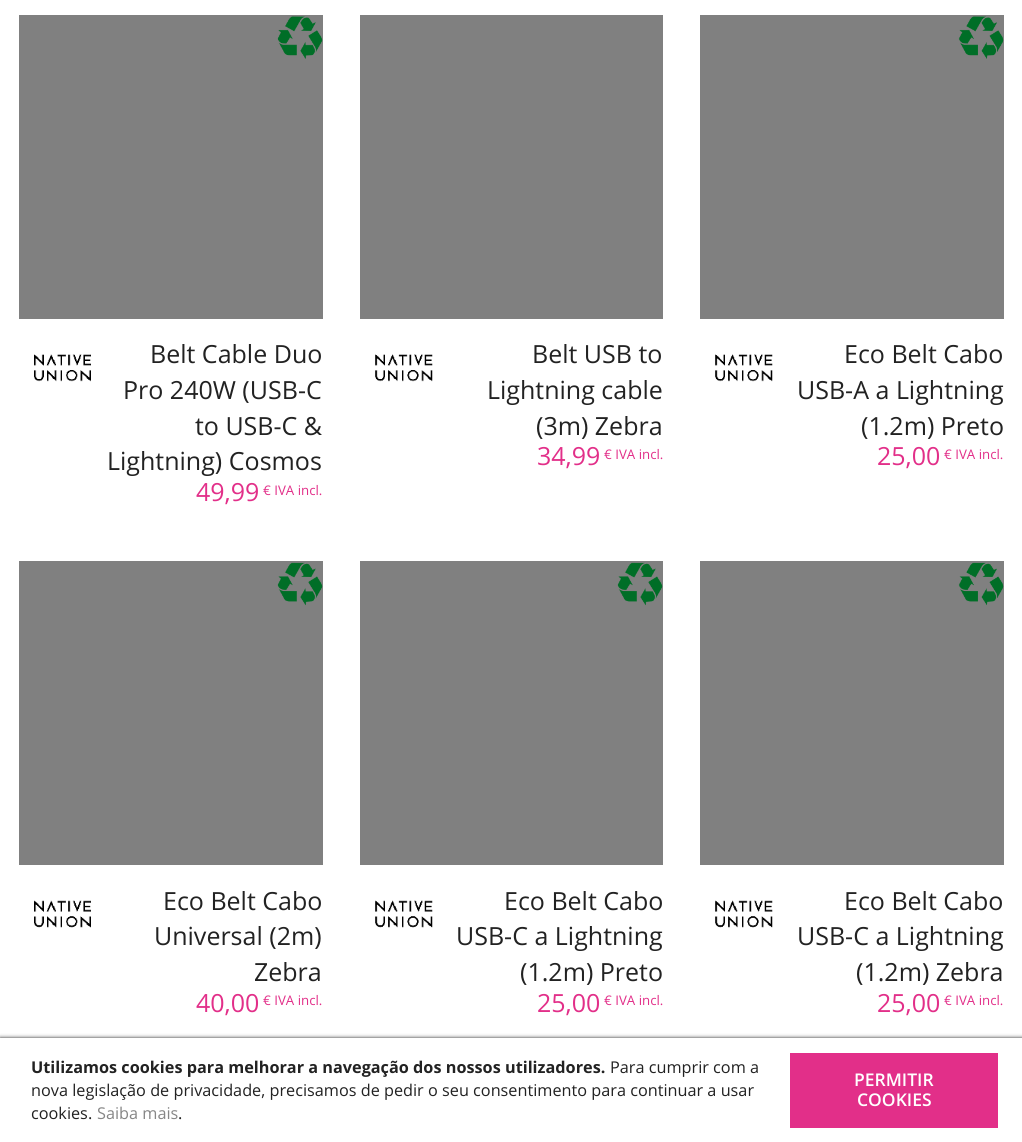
#include <cairo.h>
#include <math.h>
#include <stddef.h>

typedef struct { double x, y; const char *s; } line_t;

static void ink(cairo_t *ctx, unsigned color) {
    cairo_set_source_rgb(ctx, (color >> 16) / 255.0, (color >> 8 & 255) / 255.0, (color & 255) / 255.0);
}

static void round_path(cairo_t *ctx, double x, double y, double w, double h, double r) {
    cairo_new_sub_path(ctx);
    cairo_arc(ctx, x + w - r, y + h - r, r, 0, M_PI / 2);
    cairo_arc(ctx, x + r, y + h - r, r, M_PI / 2, M_PI);
    cairo_arc(ctx, x + r, y + r, r, M_PI, 1.5 * M_PI);
    cairo_arc(ctx, x + w - r, y + r, r, 1.5 * M_PI, 2 * M_PI);
    cairo_close_path(ctx);
}

static void blur_box(cairo_t *ctx, double x, double y, double w, double h, double r, double blur, double alpha) {
    cairo_push_group_with_content(ctx, CAIRO_CONTENT_ALPHA);
    cairo_set_operator(ctx, CAIRO_OPERATOR_SOURCE);
    for (int i = 15; i >= -15 && fmin(w, h) + blur * i / 3 > 0; i -= 2) {
        double e = blur * i / 6;
        cairo_set_source_rgba(ctx, 0, 0, 0, alpha * erfc((i - 1) / 8.5) / 2);
        round_path(ctx, x - e, y - e, w + 2 * e, h + 2 * e, fmax(0, fmin(r + e + blur * .6, fmin(w, h) / 2 + e)));
        cairo_fill(ctx);
    }
    cairo_pattern_t *soft = cairo_pop_group(ctx);
    cairo_mask(ctx, soft);
    cairo_pattern_destroy(soft);
}

static void paste(cairo_t *ctx, const char *path, double x, double y, double w, double h) {
    cairo_surface_t *image = cairo_image_surface_create_from_png(path);
    cairo_save(ctx);
    cairo_set_source_surface(ctx, image, x, y);
    cairo_rectangle(ctx, x, y, w, h);
    cairo_fill(ctx);
    cairo_restore(ctx);
    cairo_surface_destroy(image);
}

int main(void) {
    cairo_surface_t *surface = cairo_image_surface_create(CAIRO_FORMAT_RGB24, 1022, 1142);
    cairo_t *ctx = cairo_create(surface);
    cairo_font_options_t *options = cairo_font_options_create();
    cairo_font_options_set_hint_metrics(options, CAIRO_HINT_METRICS_OFF);
    cairo_font_options_set_hint_style(options, CAIRO_HINT_STYLE_NONE);
    cairo_set_font_options(ctx, options);
    cairo_set_miter_limit(ctx, 4);
    ink(ctx, 0xFFFFFF);
    cairo_paint(ctx);
    ink(ctx, 0x808080);
    cairo_rectangle(ctx, 19, 15, 304, 304);
    cairo_fill(ctx);
    paste(ctx, "media/1.png", 277, 16, 46, 43);
    paste(ctx, "media/2.png", 34, 354, 57, 28);
    cairo_select_font_face(ctx, "Open Sans", CAIRO_FONT_SLANT_NORMAL, CAIRO_FONT_WEIGHT_NORMAL);
    cairo_set_font_size(ctx, 25);
    ink(ctx, 0x222222);
    {
        static const line_t items[] = {
            {150, 363, "Belt Cable Duo"},
            {123, 399, "Pro 240W (USB-C"},
            {195, 435, "to USB-C &"},
            {107, 470, "Lightning) Cosmos"},
        };
        for (size_t i = 0; i < sizeof items / sizeof *items; i++) {
            cairo_move_to(ctx, items[i].x, items[i].y);
            cairo_show_text(ctx, items[i].s);
        }
    }
    ink(ctx, 0xE22F89);
    cairo_move_to(ctx, 196, 501);
    cairo_show_text(ctx, "49,99");
    cairo_set_font_size(ctx, 13.25);
    cairo_move_to(ctx, 263, 495);
    cairo_show_text(ctx, "€ IVA incl.");
    ink(ctx, 0x808080);
    cairo_rectangle(ctx, 360, 15, 303, 304);
    cairo_fill(ctx);
    paste(ctx, "media/3.png", 375, 354, 58, 28);
    cairo_set_font_size(ctx, 25);
    ink(ctx, 0x222222);
    {
        static const line_t items[] = {
            {532, 363, "Belt USB to"},
            {487, 399, "Lightning cable"},
            {536, 435, "(3m) Zebra"},
        };
        for (size_t i = 0; i < sizeof items / sizeof *items; i++) {
            cairo_move_to(ctx, items[i].x, items[i].y);
            cairo_show_text(ctx, items[i].s);
        }
    }
    ink(ctx, 0xE22F89);
    cairo_move_to(ctx, 537, 465);
    cairo_show_text(ctx, "34,99");
    cairo_set_font_size(ctx, 13.25);
    cairo_move_to(ctx, 604, 459);
    cairo_show_text(ctx, "€ IVA incl.");
    ink(ctx, 0x808080);
    cairo_rectangle(ctx, 700, 15, 304, 304);
    cairo_fill(ctx);
    paste(ctx, "media/4.png", 958, 16, 46, 43);
    paste(ctx, "media/5.png", 715, 354, 58, 28);
    cairo_set_font_size(ctx, 25);
    ink(ctx, 0x222222);
    {
        static const line_t items[] = {
            {844, 363, "Eco Belt Cabo"},
            {797, 399, "USB-A a Lightning"},
            {861, 435, "(1.2m) Preto"},
        };
        for (size_t i = 0; i < sizeof items / sizeof *items; i++) {
            cairo_move_to(ctx, items[i].x, items[i].y);
            cairo_show_text(ctx, items[i].s);
        }
    }
    ink(ctx, 0xE22F89);
    cairo_move_to(ctx, 877, 465);
    cairo_show_text(ctx, "25,00");
    cairo_set_font_size(ctx, 13.25);
    cairo_move_to(ctx, 944, 459);
    cairo_show_text(ctx, "€ IVA incl.");
    ink(ctx, 0x808080);
    cairo_rectangle(ctx, 19, 561, 304, 304);
    cairo_fill(ctx);
    paste(ctx, "media/6.png", 277, 562, 46, 44);
    paste(ctx, "media/7.png", 34, 900, 57, 28);
    cairo_set_font_size(ctx, 25);
    ink(ctx, 0x222222);
    {
        static const line_t items[] = {
            {163, 910, "Eco Belt Cabo"},
            {154, 945, "Universal (2m)"},
            {254, 981, "Zebra"},
        };
        for (size_t i = 0; i < sizeof items / sizeof *items; i++) {
            cairo_move_to(ctx, items[i].x, items[i].y);
            cairo_show_text(ctx, items[i].s);
        }
    }
    ink(ctx, 0xE22F89);
    cairo_move_to(ctx, 196, 1012);
    cairo_show_text(ctx, "40,00");
    cairo_set_font_size(ctx, 13.25);
    cairo_move_to(ctx, 263, 1005);
    cairo_show_text(ctx, "€ IVA incl.");
    ink(ctx, 0x808080);
    cairo_rectangle(ctx, 360, 561, 303, 304);
    cairo_fill(ctx);
    paste(ctx, "media/8.png", 617, 562, 46, 44);
    paste(ctx, "media/9.png", 375, 900, 58, 28);
    cairo_set_font_size(ctx, 25);
    ink(ctx, 0x222222);
    {
        static const line_t items[] = {
            {504, 910, "Eco Belt Cabo"},
            {456, 945, "USB-C a Lightning"},
            {520, 981, "(1.2m) Preto"},
        };
        for (size_t i = 0; i < sizeof items / sizeof *items; i++) {
            cairo_move_to(ctx, items[i].x, items[i].y);
            cairo_show_text(ctx, items[i].s);
        }
    }
    ink(ctx, 0xE22F89);
    cairo_move_to(ctx, 537, 1012);
    cairo_show_text(ctx, "25,00");
    cairo_set_font_size(ctx, 13.25);
    cairo_move_to(ctx, 604, 1005);
    cairo_show_text(ctx, "€ IVA incl.");
    ink(ctx, 0x808080);
    cairo_rectangle(ctx, 700, 561, 304, 304);
    cairo_fill(ctx);
    paste(ctx, "media/10.png", 958, 562, 46, 44);
    paste(ctx, "media/11.png", 715, 900, 58, 28);
    cairo_set_font_size(ctx, 25);
    ink(ctx, 0x222222);
    {
        static const line_t items[] = {
            {844, 910, "Eco Belt Cabo"},
            {797, 945, "USB-C a Lightning"},
            {856, 981, "(1.2m) Zebra"},
        };
        for (size_t i = 0; i < sizeof items / sizeof *items; i++) {
            cairo_move_to(ctx, items[i].x, items[i].y);
            cairo_show_text(ctx, items[i].s);
        }
    }
    ink(ctx, 0xE22F89);
    cairo_move_to(ctx, 877, 1012);
    cairo_show_text(ctx, "25,00");
    cairo_set_font_size(ctx, 13.25);
    cairo_move_to(ctx, 944, 1005);
    cairo_show_text(ctx, "€ IVA incl.");
    ink(ctx, 0x222222);
    blur_box(ctx, 0, 1038, 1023, 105, 0, 2, 1);
    ink(ctx, 0xFFFFFF);
    cairo_rectangle(ctx, 0, 1038, 1022, 104);
    cairo_fill(ctx);
    cairo_select_font_face(ctx, "Open Sans", CAIRO_FONT_SLANT_NORMAL, CAIRO_FONT_WEIGHT_BOLD);
    cairo_set_font_size(ctx, 16.25);
    ink(ctx, 0x222222);
    cairo_move_to(ctx, 31, 1073);
    cairo_show_text(ctx, "Utilizamos cookies para melhorar a navegação dos nossos utilizadores.");
    cairo_select_font_face(ctx, "Open Sans", CAIRO_FONT_SLANT_NORMAL, CAIRO_FONT_WEIGHT_NORMAL);
    {
        static const line_t items[] = {
            {610, 1073, "Para cumprir com a"},
            {31, 1096, "nova legislação de privacidade, precisamos de pedir o seu consentimento para continuar a usar"},
            {31, 1119, "cookies."},
        };
        for (size_t i = 0; i < sizeof items / sizeof *items; i++) {
            cairo_move_to(ctx, items[i].x, items[i].y);
            cairo_show_text(ctx, items[i].s);
        }
    }
    ink(ctx, 0x868686);
    cairo_move_to(ctx, 97, 1119);
    cairo_show_text(ctx, "Saiba mais");
    ink(ctx, 0x222222);
    cairo_move_to(ctx, 178, 1119);
    cairo_show_text(ctx, ".");
    ink(ctx, 0xE22F89);
    cairo_rectangle(ctx, 790, 1053, 208, 75);
    cairo_fill(ctx);
    cairo_select_font_face(ctx, "Open Sans SemiBold", CAIRO_FONT_SLANT_NORMAL, CAIRO_FONT_WEIGHT_NORMAL);
    cairo_set_font_size(ctx, 17.5);
    ink(ctx, 0xFFFFFF);
    cairo_move_to(ctx, 854, 1086);
    cairo_show_text(ctx, "PERMITIR");
    cairo_move_to(ctx, 857, 1106);
    cairo_show_text(ctx, "COOKIES");
    cairo_surface_write_to_png(surface, "image.png");
    cairo_font_options_destroy(options);
    cairo_destroy(ctx);
    cairo_surface_destroy(surface);
    return 0;
}
